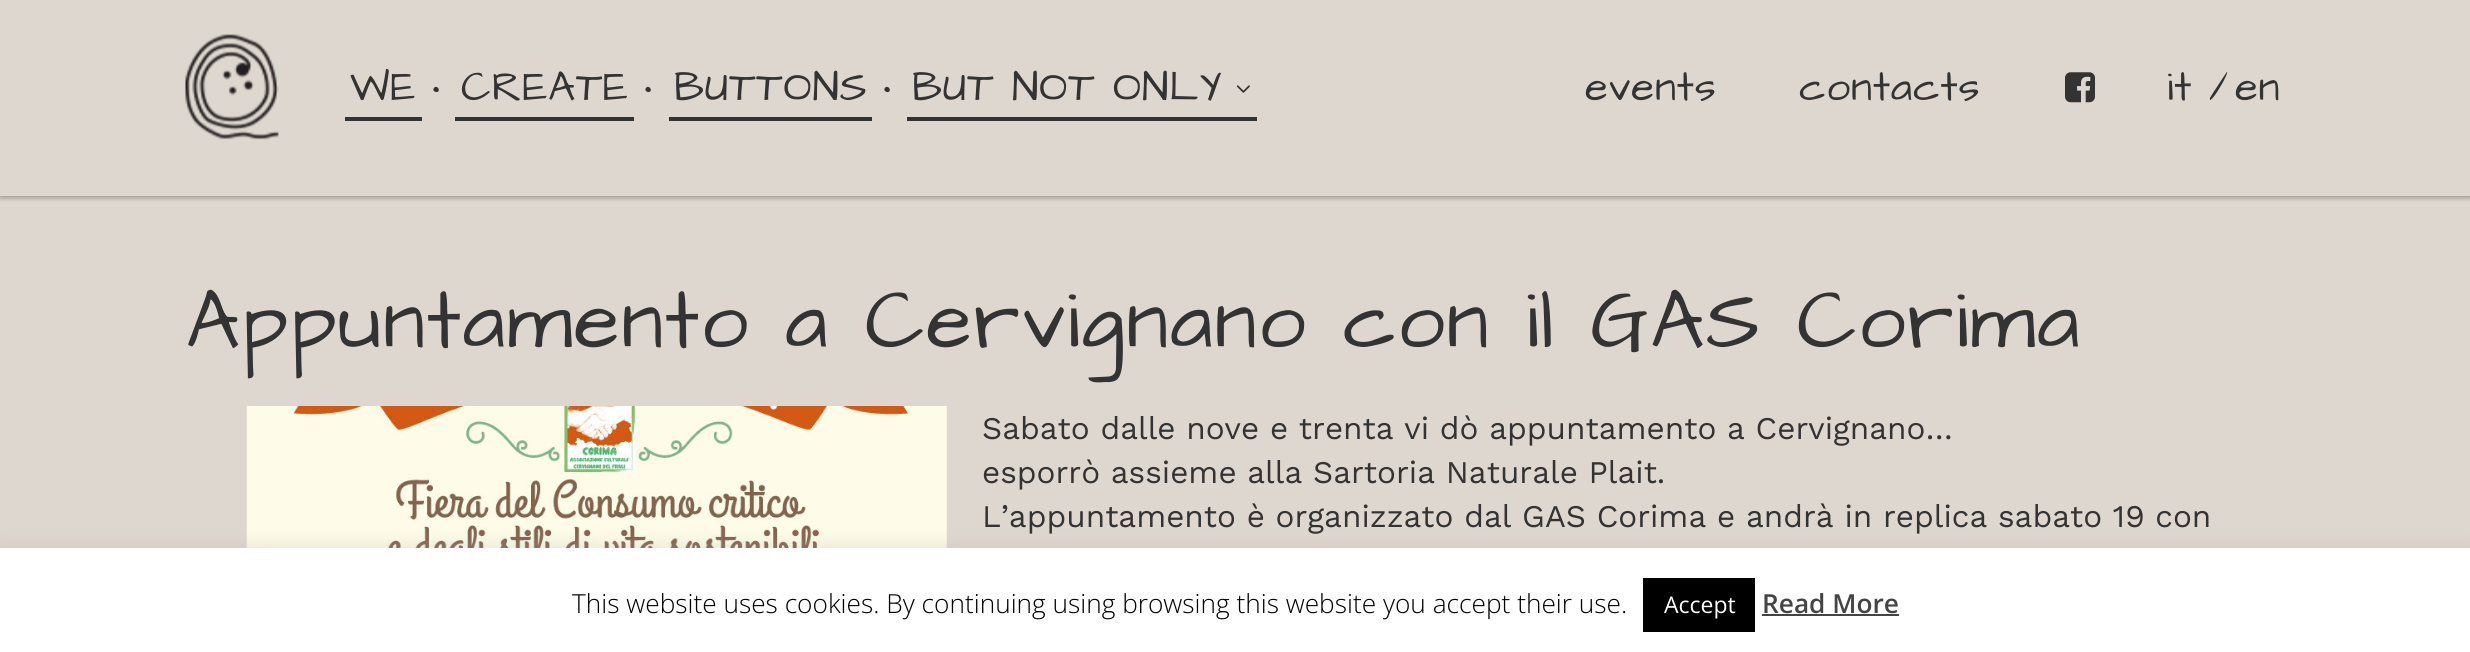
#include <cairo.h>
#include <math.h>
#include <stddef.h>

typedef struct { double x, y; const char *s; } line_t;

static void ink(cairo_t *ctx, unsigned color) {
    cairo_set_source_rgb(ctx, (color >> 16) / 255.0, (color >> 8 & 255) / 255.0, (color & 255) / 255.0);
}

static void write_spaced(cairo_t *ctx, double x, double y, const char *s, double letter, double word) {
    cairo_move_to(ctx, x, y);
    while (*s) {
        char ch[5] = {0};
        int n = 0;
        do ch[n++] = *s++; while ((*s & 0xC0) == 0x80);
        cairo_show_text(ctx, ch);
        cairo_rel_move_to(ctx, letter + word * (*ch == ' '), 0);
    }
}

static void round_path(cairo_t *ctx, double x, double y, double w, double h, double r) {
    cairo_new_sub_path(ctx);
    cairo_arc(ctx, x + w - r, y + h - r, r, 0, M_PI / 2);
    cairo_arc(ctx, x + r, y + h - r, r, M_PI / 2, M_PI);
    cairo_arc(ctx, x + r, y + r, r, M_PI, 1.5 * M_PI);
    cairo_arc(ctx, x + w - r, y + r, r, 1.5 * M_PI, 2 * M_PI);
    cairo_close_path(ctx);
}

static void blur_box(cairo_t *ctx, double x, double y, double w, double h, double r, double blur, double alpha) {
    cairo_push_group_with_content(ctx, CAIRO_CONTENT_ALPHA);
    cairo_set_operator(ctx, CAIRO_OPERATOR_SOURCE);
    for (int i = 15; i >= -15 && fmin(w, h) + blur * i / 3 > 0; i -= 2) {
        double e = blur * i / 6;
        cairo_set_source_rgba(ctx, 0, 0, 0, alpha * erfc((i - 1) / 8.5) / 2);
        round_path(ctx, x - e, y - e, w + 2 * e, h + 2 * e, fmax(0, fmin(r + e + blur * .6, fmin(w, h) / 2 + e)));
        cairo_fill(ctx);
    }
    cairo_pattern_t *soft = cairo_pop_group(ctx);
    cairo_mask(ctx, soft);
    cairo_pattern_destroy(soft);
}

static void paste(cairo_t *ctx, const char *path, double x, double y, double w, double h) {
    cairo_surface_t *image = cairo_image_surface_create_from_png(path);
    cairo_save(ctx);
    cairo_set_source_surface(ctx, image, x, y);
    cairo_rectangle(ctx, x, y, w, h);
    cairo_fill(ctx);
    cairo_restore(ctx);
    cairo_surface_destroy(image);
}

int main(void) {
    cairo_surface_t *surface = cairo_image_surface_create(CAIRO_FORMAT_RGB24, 2470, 652);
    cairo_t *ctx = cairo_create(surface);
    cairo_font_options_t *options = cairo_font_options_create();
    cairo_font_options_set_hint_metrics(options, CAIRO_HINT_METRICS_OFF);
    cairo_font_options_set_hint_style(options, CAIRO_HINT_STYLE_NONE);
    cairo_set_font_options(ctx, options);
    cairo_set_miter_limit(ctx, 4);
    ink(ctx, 0xDED7CF);
    cairo_paint(ctx);
    cairo_save(ctx);
    cairo_rectangle(ctx, 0, 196, 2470, 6);
    cairo_clip(ctx);
    ink(ctx, 0x000000);
    blur_box(ctx, 0, 0, 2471, 196, 0, 3.5, 0.5);
    cairo_restore(ctx);
    paste(ctx, "media/1.png", 185, 34, 94, 106);
    ink(ctx, 0x333333);
    cairo_rectangle(ctx, 345, 117, 77, 4);
    cairo_fill(ctx);
    cairo_select_font_face(ctx, "Architects Daughter", CAIRO_FONT_SLANT_NORMAL, CAIRO_FONT_WEIGHT_NORMAL);
    cairo_set_font_size(ctx, 42);
    write_spaced(ctx, 350, 100, "WE", 0.9, 0);
    write_spaced(ctx, 432, 100, "•", 9, 0);
    cairo_rectangle(ctx, 455, 117, 179, 4);
    cairo_fill(ctx);
    write_spaced(ctx, 461, 100, "CREATE", 0.9, 0);
    write_spaced(ctx, 644, 100, "•", 9, 0);
    cairo_rectangle(ctx, 669, 117, 203, 4);
    cairo_fill(ctx);
    write_spaced(ctx, 674, 100, "BUTTONS", 0.9, 0);
    write_spaced(ctx, 883, 100, "•", 9, 0);
    cairo_rectangle(ctx, 907, 117, 350, 4);
    cairo_fill(ctx);
    write_spaced(ctx, 912, 100, "BUT NOT ONLY", 0.9, 0);
    paste(ctx, "media/2.png", 1236, 85, 14, 8);
    write_spaced(ctx, 1585, 100, "events", 0.9, 0);
    write_spaced(ctx, 1799, 100, "contacts", 0.9, 0);
    paste(ctx, "media/3.png", 2065, 72, 30, 31);
    write_spaced(ctx, 2167, 100, "it", 0.9, 0);
    cairo_move_to(ctx, 2209, 100);
    cairo_show_text(ctx, "/");
    write_spaced(ctx, 2235, 100, "en", 0.9, 0);
    cairo_set_font_size(ctx, 84);
    write_spaced(ctx, 186, 347, "Appuntamento a Cervignano con il GAS Corima", 1.75, 0);
    paste(ctx, "media/4.png", 246, 406, 701, 142);
    cairo_select_font_face(ctx, "Work Sans", CAIRO_FONT_SLANT_NORMAL, CAIRO_FONT_WEIGHT_NORMAL);
    cairo_set_font_size(ctx, 31.5);
    {
        static const line_t items[] = {
            {982, 439, "Sabato dalle nove e trenta vi dò appuntamento a Cervignano…"},
            {982, 483, "esporrò assieme alla Sartoria Naturale Plait."},
            {982, 527, "L’appuntamento è organizzato dal GAS Corima e andrà in replica sabato 19 con"},
        };
        for (size_t i = 0; i < sizeof items / sizeof *items; i++) {
            cairo_move_to(ctx, items[i].x, items[i].y);
            cairo_show_text(ctx, items[i].s);
        }
    }
    ink(ctx, 0xACABAB);
    blur_box(ctx, 0, 546, 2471, 105, 0, 9, 0.3);
    ink(ctx, 0xFFFFFF);
    cairo_rectangle(ctx, 0, 548, 2470, 104);
    cairo_fill(ctx);
    cairo_select_font_face(ctx, "Open Sans Light", CAIRO_FONT_SLANT_NORMAL, CAIRO_FONT_WEIGHT_NORMAL);
    cairo_set_font_size(ctx, 26.25);
    ink(ctx, 0x000000);
    cairo_move_to(ctx, 572, 613);
    cairo_show_text(ctx, "This website uses cookies. By continuing using browsing this website you accept their use.");
    cairo_rectangle(ctx, 1643, 578, 112, 54);
    cairo_fill(ctx);
    cairo_select_font_face(ctx, "Open Sans", CAIRO_FONT_SLANT_NORMAL, CAIRO_FONT_WEIGHT_NORMAL);
    cairo_set_font_size(ctx, 23);
    ink(ctx, 0xFFFFFF);
    cairo_move_to(ctx, 1664, 613);
    cairo_show_text(ctx, "Accept");
    cairo_select_font_face(ctx, "Open Sans SemiBold", CAIRO_FONT_SLANT_NORMAL, CAIRO_FONT_WEIGHT_NORMAL);
    cairo_set_font_size(ctx, 26.25);
    ink(ctx, 0x444444);
    cairo_move_to(ctx, 1762, 613);
    cairo_show_text(ctx, "Read More");
    cairo_rectangle(ctx, 1762, 614, 137, 2);
    cairo_fill(ctx);
    cairo_surface_write_to_png(surface, "image.png");
    cairo_font_options_destroy(options);
    cairo_destroy(ctx);
    cairo_surface_destroy(surface);
    return 0;
}
